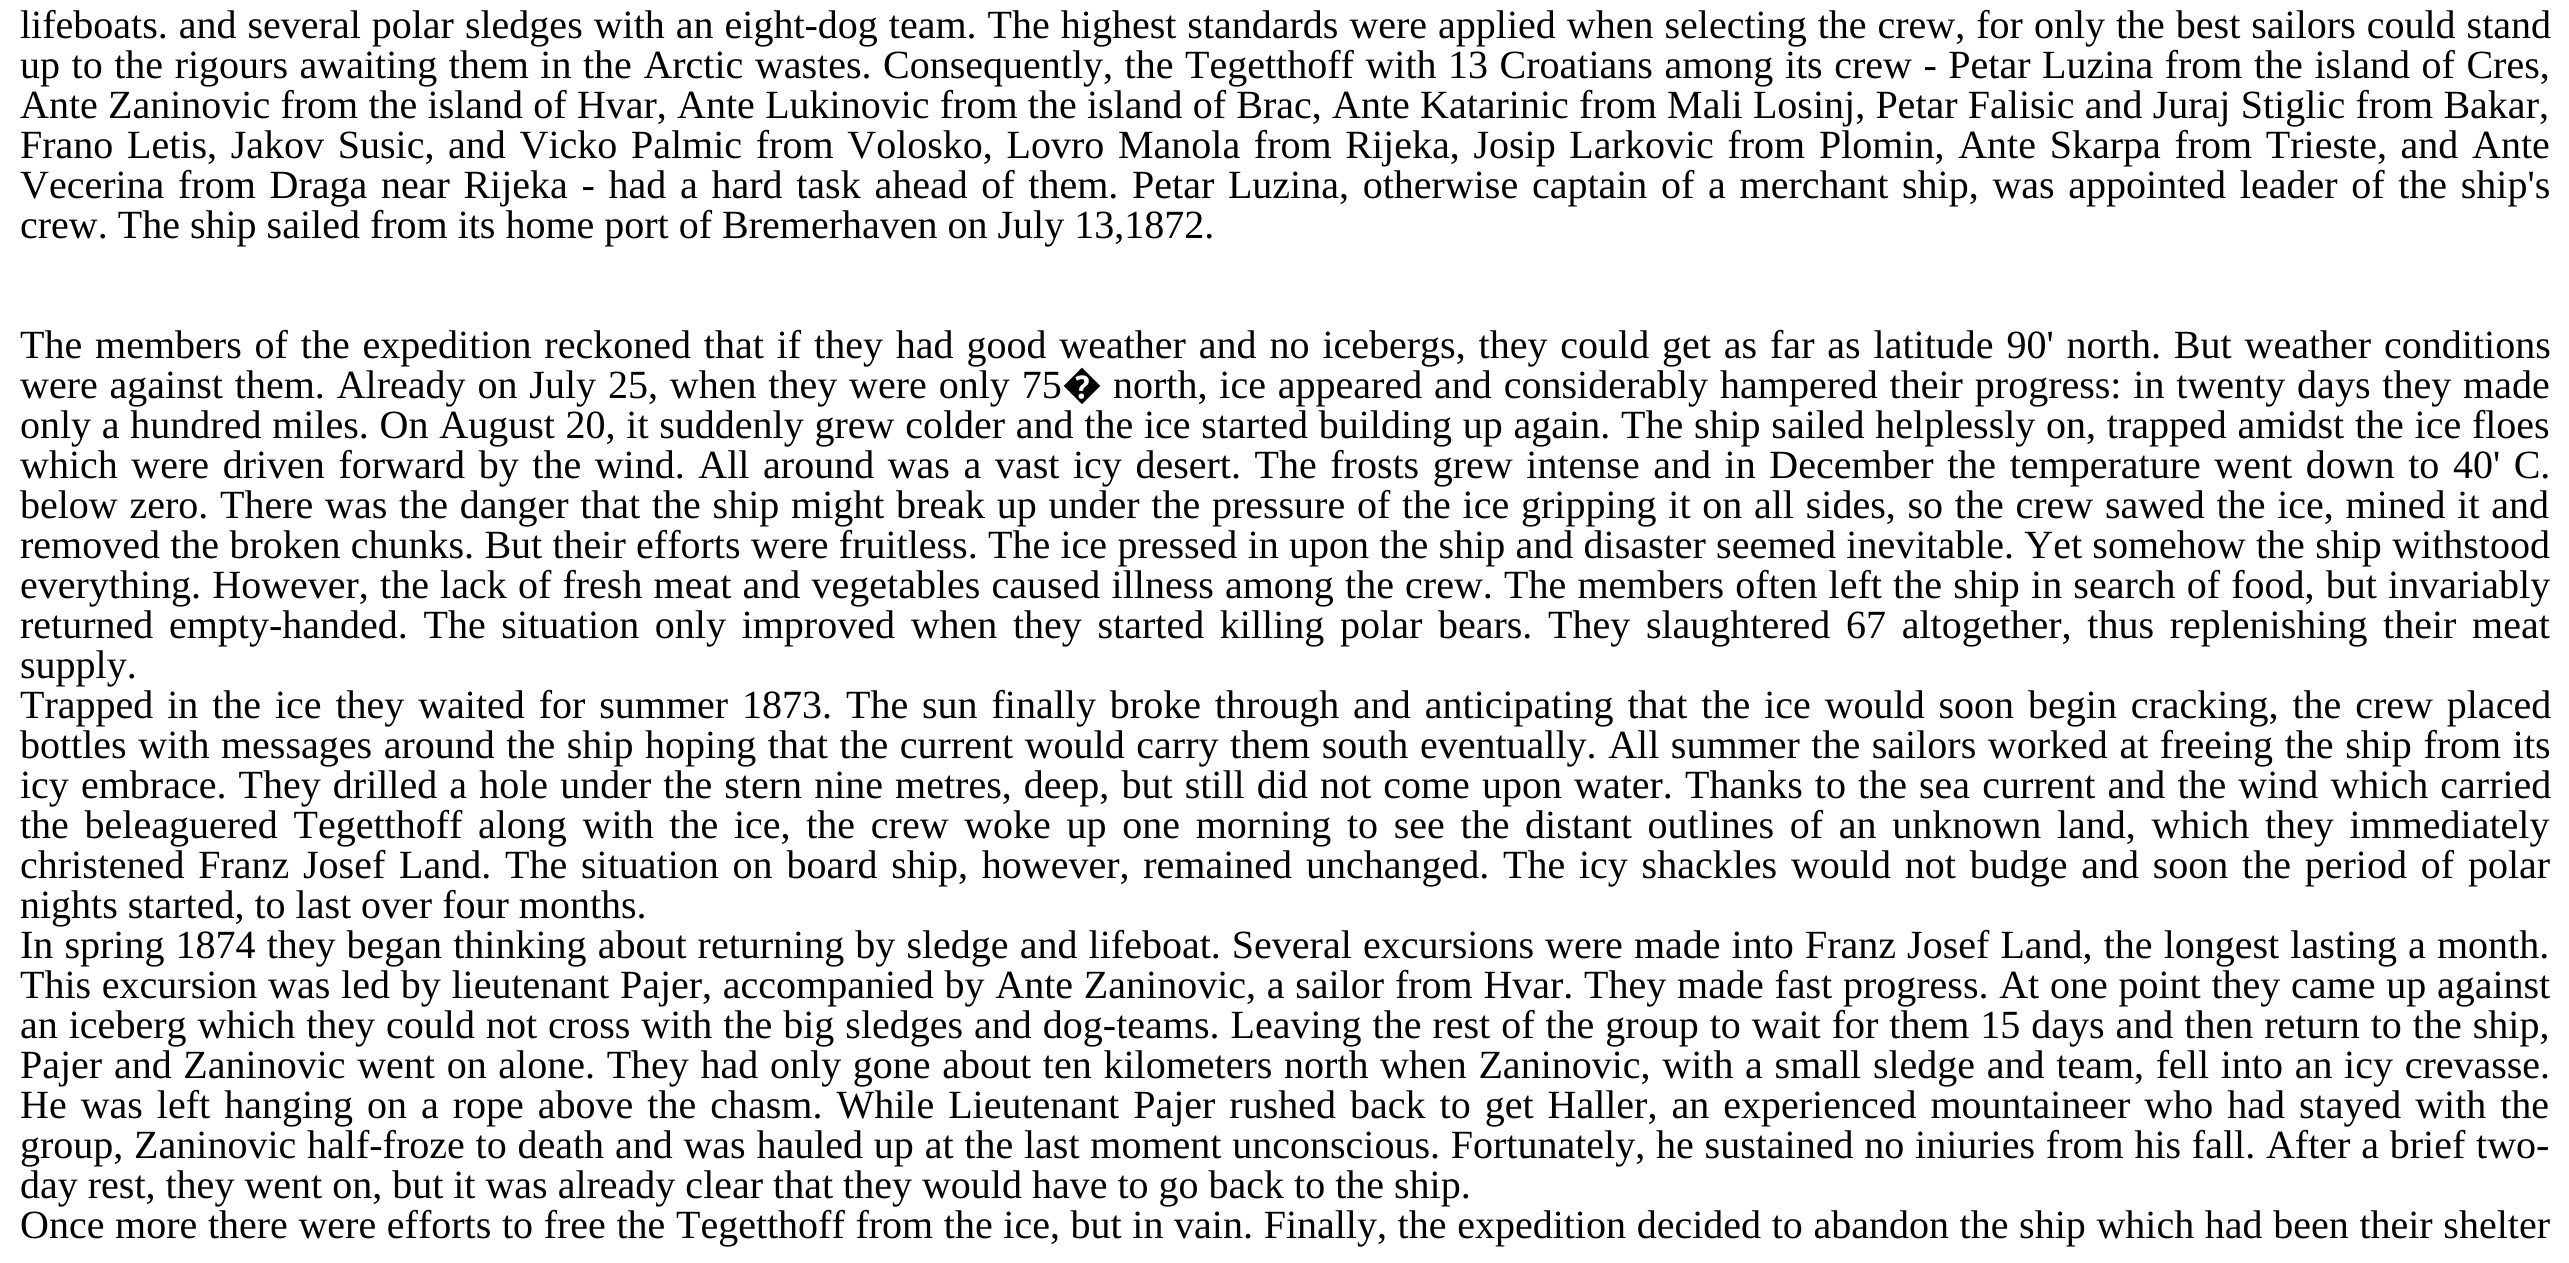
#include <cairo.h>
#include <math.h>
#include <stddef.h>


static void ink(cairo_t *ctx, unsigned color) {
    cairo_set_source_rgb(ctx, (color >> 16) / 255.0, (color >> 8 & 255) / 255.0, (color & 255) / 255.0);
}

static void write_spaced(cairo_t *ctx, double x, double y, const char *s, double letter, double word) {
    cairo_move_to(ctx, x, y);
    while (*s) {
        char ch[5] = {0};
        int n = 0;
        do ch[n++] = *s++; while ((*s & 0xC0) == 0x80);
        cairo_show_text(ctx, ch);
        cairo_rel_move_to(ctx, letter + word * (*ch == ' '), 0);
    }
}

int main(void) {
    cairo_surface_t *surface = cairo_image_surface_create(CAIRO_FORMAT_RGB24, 2569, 1263);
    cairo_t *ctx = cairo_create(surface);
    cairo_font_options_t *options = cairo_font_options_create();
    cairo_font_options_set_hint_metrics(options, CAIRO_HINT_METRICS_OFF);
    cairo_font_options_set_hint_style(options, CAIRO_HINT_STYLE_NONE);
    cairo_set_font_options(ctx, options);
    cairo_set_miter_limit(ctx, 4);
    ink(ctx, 0xFFFFFF);
    cairo_paint(ctx);
    cairo_select_font_face(ctx, "Liberation Serif", CAIRO_FONT_SLANT_NORMAL, CAIRO_FONT_WEIGHT_NORMAL);
    cairo_set_font_size(ctx, 40);
    ink(ctx, 0x000000);
    write_spaced(ctx, 20, 38, "lifeboats. and several polar sledges with an eight-dog team. The highest standards were applied when selecting the crew, for only the best sailors could stand", 0, 1);
    write_spaced(ctx, 20, 78, "up to the rigours awaiting them in the Arctic wastes. Consequently, the Tegetthoff with 13 Croatians among its crew - Petar Luzina from the island of Cres,", 0, 1.55);
    write_spaced(ctx, 20, 118, "Ante Zaninovic from the island of Hvar, Ante Lukinovic from the island of Brac, Ante Katarinic from Mali Losinj, Petar Falisic and Juraj Stiglic from Bakar,", 0, 0.25);
    write_spaced(ctx, 20, 158, "Frano Letis, Jakov Susic, and Vicko Palmic from Volosko, Lovro Manola from Rijeka, Josip Larkovic from Plomin, Ante Skarpa from Trieste, and Ante", 0, 3.7);
    write_spaced(ctx, 20, 198, "Vecerina from Draga near Rijeka - had a hard task ahead of them. Petar Luzina, otherwise captain of a merchant ship, was appointed leader of the ship's", 0, 3.7);
    cairo_move_to(ctx, 20, 238);
    cairo_show_text(ctx, "crew. The ship sailed from its home port of Bremerhaven on July 13,1872.");
    write_spaced(ctx, 20, 358, "The members of the expedition reckoned that if they had good weather and no icebergs, they could get as far as latitude 90' north. But weather conditions", 0, 2.9);
    write_spaced(ctx, 20, 398, "were against them. Already on July 25, when they were only 75", 0, 1.9);
    cairo_select_font_face(ctx, "Noto Sans", CAIRO_FONT_SLANT_NORMAL, CAIRO_FONT_WEIGHT_NORMAL);
    cairo_move_to(ctx, 1062, 398);
    cairo_show_text(ctx, "�");
    cairo_select_font_face(ctx, "Liberation Serif", CAIRO_FONT_SLANT_NORMAL, CAIRO_FONT_WEIGHT_NORMAL);
    write_spaced(ctx, 1113, 398, "north, ice appeared and considerably hampered their progress: in twenty days they made", 0, 1.9);
    write_spaced(ctx, 20, 438, "only a hundred miles. On August 20, it suddenly grew colder and the ice started building up again. The ship sailed helplessly on, trapped amidst the ice floes", 0, 0.75);
    write_spaced(ctx, 20, 478, "which were driven forward by the wind. All around was a vast icy desert. The frosts grew intense and in December the temperature went down to 40' C.", 0, 3.6);
    write_spaced(ctx, 20, 518, "below zero. There was the danger that the ship might break up under the pressure of the ice gripping it on all sides, so the crew sawed the ice, mined it and", 0, 1.75);
    write_spaced(ctx, 20, 558, "removed the broken chunks. But their efforts were fruitless. The ice pressed in upon the ship and disaster seemed inevitable. Yet somehow the ship withstood", 0, 0.3);
    write_spaced(ctx, 20, 598, "everything. However, the lack of fresh meat and vegetables caused illness among the crew. The members often left the ship in search of food, but invariably", 0, 1.2);
    write_spaced(ctx, 20, 638, "returned empty-handed. The situation only improved when they started killing polar bears. They slaughtered 67 altogether, thus replenishing their meat", 0, 5.7);
    cairo_move_to(ctx, 20, 678);
    cairo_show_text(ctx, "supply.");
    write_spaced(ctx, 20, 718, "Trapped in the ice they waited for summer 1873. The sun finally broke through and anticipating that the ice would soon begin cracking, the crew placed", 0, 3.9);
    write_spaced(ctx, 20, 758, "bottles with messages around the ship hoping that the current would carry them south eventually. All summer the sailors worked at freeing the ship from its", 0, 1.6);
    write_spaced(ctx, 20, 798, "icy embrace. They drilled a hole under the stern nine metres, deep, but still did not come upon water. Thanks to the sea current and the wind which carried", 0, 2.1);
    write_spaced(ctx, 20, 838, "the beleaguered Tegetthoff along with the ice, the crew woke up one morning to see the distant outlines of an unknown land, which they immediately", 0, 5.7);
    write_spaced(ctx, 20, 878, "christened Franz Josef Land. The situation on board ship, however, remained unchanged. The icy shackles would not budge and soon the period of polar", 0, 3.8);
    cairo_move_to(ctx, 20, 918);
    cairo_show_text(ctx, "nights started, to last over four months.");
    write_spaced(ctx, 20, 958, "In spring 1874 they began thinking about returning by sledge and lifeboat. Several excursions were made into Franz Josef Land, the longest lasting a month.", 0, 1.1);
    write_spaced(ctx, 20, 998, "This excursion was led by lieutenant Pajer, accompanied by Ante Zaninovic, a sailor from Hvar. They made fast progress. At one point they came up against", 0, 0.75);
    write_spaced(ctx, 20, 1038, "an iceberg which they could not cross with the big sledges and dog-teams. Leaving the rest of the group to wait for them 15 days and then return to the ship,", 0, 1);
    write_spaced(ctx, 20, 1078, "Pajer and Zaninovic went on alone. They had only gone about ten kilometers north when Zaninovic, with a small sledge and team, fell into an icy crevasse.", 0, 1.7);
    write_spaced(ctx, 20, 1118, "He was left hanging on a rope above the chasm. While Lieutenant Pajer rushed back to get Haller, an experienced mountaineer who had stayed with the", 0, 4);
    write_spaced(ctx, 20, 1158, "group, Zaninovic half-froze to death and was hauled up at the last moment unconscious. Fortunately, he sustained no iniuries from his fall. After a brief two-", 0, 0.8);
    cairo_move_to(ctx, 20, 1198);
    cairo_show_text(ctx, "day rest, they went on, but it was already clear that they would have to go back to the ship.");
    write_spaced(ctx, 20, 1238, "Once more there were efforts to free the Tegetthoff from the ice, but in vain. Finally, the expedition decided to abandon the ship which had been their shelter", 0, 0.65);
    cairo_surface_write_to_png(surface, "image.png");
    cairo_font_options_destroy(options);
    cairo_destroy(ctx);
    cairo_surface_destroy(surface);
    return 0;
}
